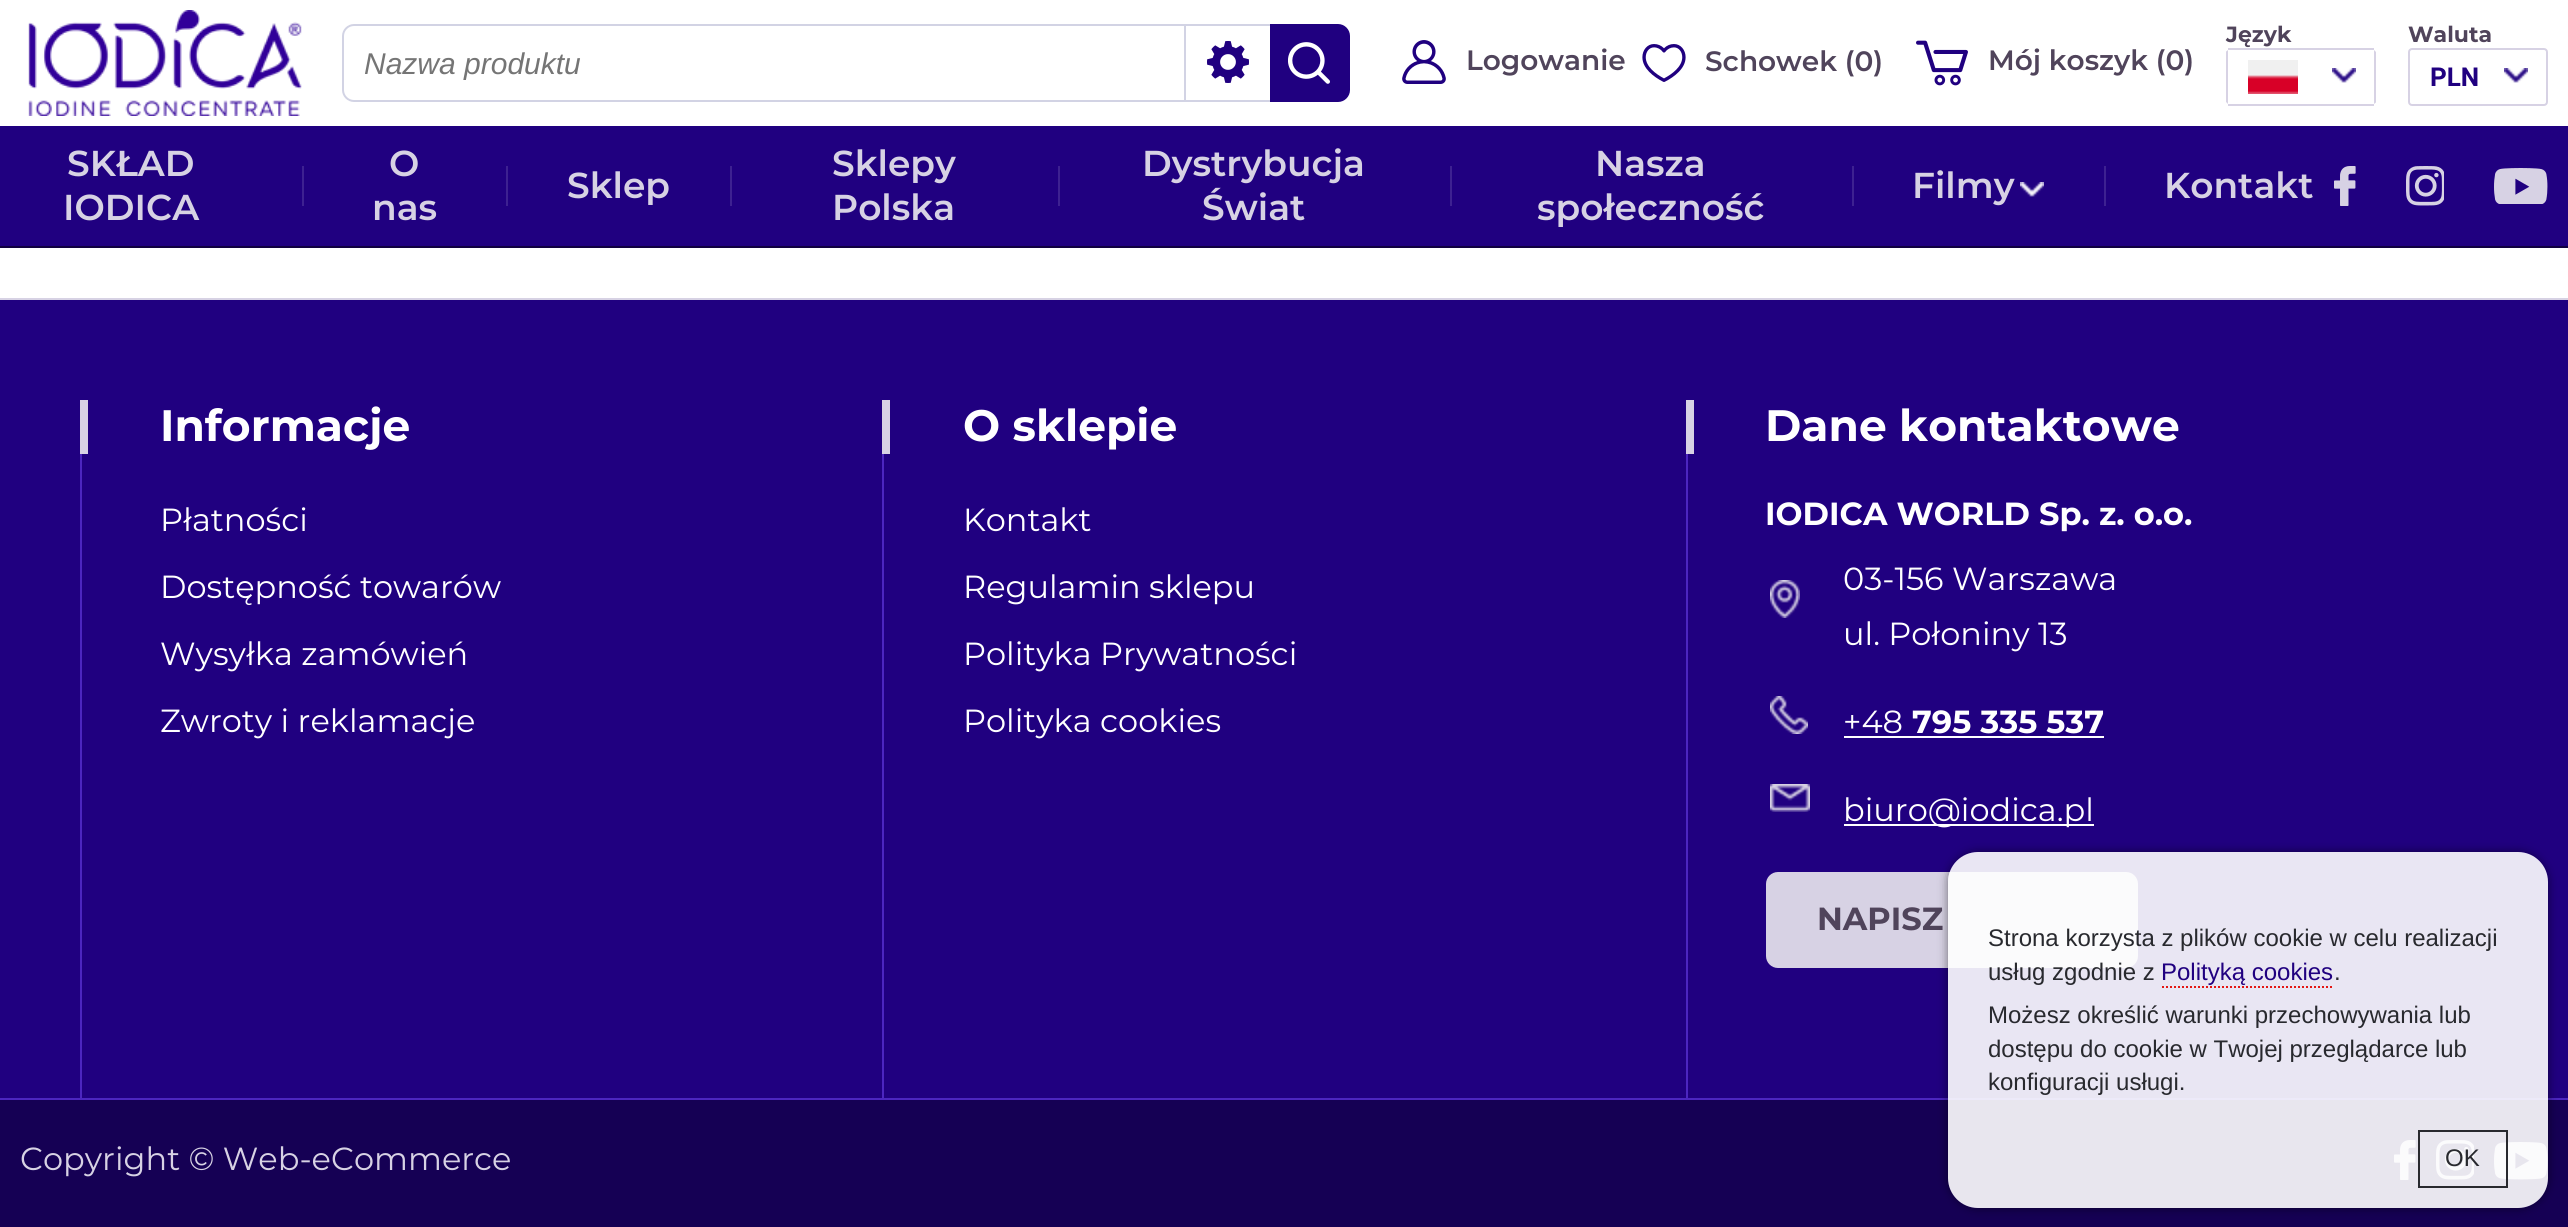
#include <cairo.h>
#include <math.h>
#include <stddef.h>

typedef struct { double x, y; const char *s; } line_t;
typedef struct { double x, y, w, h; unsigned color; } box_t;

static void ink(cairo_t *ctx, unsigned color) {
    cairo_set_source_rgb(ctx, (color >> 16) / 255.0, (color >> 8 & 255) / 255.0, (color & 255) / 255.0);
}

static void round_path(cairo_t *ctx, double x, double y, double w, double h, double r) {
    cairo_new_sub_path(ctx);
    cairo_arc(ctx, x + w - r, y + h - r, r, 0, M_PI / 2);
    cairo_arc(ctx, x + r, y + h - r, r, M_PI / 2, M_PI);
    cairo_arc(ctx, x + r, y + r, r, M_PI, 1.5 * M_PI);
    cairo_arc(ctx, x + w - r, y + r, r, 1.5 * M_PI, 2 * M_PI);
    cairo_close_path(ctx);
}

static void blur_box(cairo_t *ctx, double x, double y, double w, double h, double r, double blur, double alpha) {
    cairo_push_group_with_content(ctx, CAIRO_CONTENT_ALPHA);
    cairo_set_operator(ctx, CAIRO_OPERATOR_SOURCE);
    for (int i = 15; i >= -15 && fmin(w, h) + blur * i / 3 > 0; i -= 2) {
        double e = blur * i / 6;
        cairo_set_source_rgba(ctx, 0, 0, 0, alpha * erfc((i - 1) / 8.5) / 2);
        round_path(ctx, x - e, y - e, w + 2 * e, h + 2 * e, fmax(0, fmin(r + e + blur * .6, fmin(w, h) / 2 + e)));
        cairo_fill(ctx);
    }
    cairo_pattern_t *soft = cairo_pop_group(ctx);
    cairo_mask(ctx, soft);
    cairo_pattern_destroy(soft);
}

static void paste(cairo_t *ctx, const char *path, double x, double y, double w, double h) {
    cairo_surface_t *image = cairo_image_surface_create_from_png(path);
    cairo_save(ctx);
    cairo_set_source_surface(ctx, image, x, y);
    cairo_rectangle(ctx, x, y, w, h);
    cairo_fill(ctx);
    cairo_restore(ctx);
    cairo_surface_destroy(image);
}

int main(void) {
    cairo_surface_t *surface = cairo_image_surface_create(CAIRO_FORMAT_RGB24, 2568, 1227);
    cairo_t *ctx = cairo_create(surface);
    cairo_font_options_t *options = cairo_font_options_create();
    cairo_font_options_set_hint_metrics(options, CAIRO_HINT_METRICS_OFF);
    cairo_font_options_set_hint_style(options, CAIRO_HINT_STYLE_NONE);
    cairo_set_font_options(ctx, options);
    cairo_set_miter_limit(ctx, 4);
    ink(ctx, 0xFFFFFF);
    cairo_paint(ctx);
    paste(ctx, "media/1.png", 28, 10, 274, 106);
    cairo_new_path(ctx);
    cairo_move_to(ctx, 354, 25);
    cairo_line_to(ctx, 1185, 25);
    cairo_line_to(ctx, 1185, 101);
    cairo_line_to(ctx, 354, 101);
    cairo_curve_to(ctx, 348, 101, 343, 96, 343, 90);
    cairo_line_to(ctx, 343, 36);
    cairo_curve_to(ctx, 343, 30, 348, 25, 354, 25);
    cairo_close_path(ctx);
    ink(ctx, 0xD2D3E4);
    cairo_stroke(ctx);
    cairo_save(ctx);
    cairo_rectangle(ctx, 364, 46, 772, 34);
    cairo_clip(ctx);
    cairo_select_font_face(ctx, "Liberation Sans", CAIRO_FONT_SLANT_ITALIC, CAIRO_FONT_WEIGHT_NORMAL);
    cairo_set_font_size(ctx, 30);
    ink(ctx, 0x757575);
    cairo_move_to(ctx, 364, 74);
    cairo_show_text(ctx, "Nazwa produktu");
    cairo_restore(ctx);
    cairo_rectangle(ctx, 1186, 24, 84, 2);
    cairo_fill(ctx);
    cairo_rectangle(ctx, 1186, 100, 84, 2);
    cairo_fill(ctx);
    paste(ctx, "media/2.png", 1207, 41, 42, 42);
    ink(ctx, 0x200080);
    cairo_new_path(ctx);
    cairo_move_to(ctx, 1271, 25);
    cairo_line_to(ctx, 1338, 25);
    cairo_curve_to(ctx, 1344, 25, 1349, 30, 1349, 36);
    cairo_line_to(ctx, 1349, 90);
    cairo_curve_to(ctx, 1349, 96, 1344, 101, 1338, 101);
    cairo_line_to(ctx, 1271, 101);
    cairo_close_path(ctx);
    cairo_fill_preserve(ctx);
    cairo_stroke(ctx);
    paste(ctx, "media/3.png", 1288, 42, 42, 42);
    paste(ctx, "media/4.png", 1402, 40, 44, 44);
    cairo_select_font_face(ctx, "Montserrat SemiBold", CAIRO_FONT_SLANT_NORMAL, CAIRO_FONT_WEIGHT_NORMAL);
    cairo_set_font_size(ctx, 28);
    ink(ctx, 0x50445B);
    cairo_move_to(ctx, 1466, 70);
    cairo_show_text(ctx, "Logowanie");
    paste(ctx, "media/5.png", 1642, 44, 44, 38);
    cairo_move_to(ctx, 1705, 71);
    cairo_show_text(ctx, "Schowek (0)");
    paste(ctx, "media/6.png", 1916, 40, 52, 46);
    cairo_move_to(ctx, 1988, 70);
    cairo_show_text(ctx, "Mój koszyk (0)");
    cairo_select_font_face(ctx, "Montserrat", CAIRO_FONT_SLANT_NORMAL, CAIRO_FONT_WEIGHT_BOLD);
    cairo_set_font_size(ctx, 22);
    cairo_move_to(ctx, 2226, 42);
    cairo_show_text(ctx, "Język");
    ink(ctx, 0xD7D2E4);
    cairo_rectangle(ctx, 2228, 48, 146, 2);
    cairo_fill(ctx);
    cairo_rectangle(ctx, 2228, 104, 146, 2);
    cairo_fill(ctx);
    cairo_new_path(ctx);
    cairo_move_to(ctx, 2376, 102);
    cairo_line_to(ctx, 2376, 52);
    cairo_line_to(ctx, 2374, 50);
    cairo_line_to(ctx, 2374, 104);
    cairo_curve_to(ctx, 2375, 103, 2376, 103, 2376, 102);
    cairo_close_path(ctx);
    cairo_fill(ctx);
    cairo_new_path(ctx);
    cairo_move_to(ctx, 2226, 52);
    cairo_line_to(ctx, 2226, 102);
    cairo_line_to(ctx, 2228, 104);
    cairo_line_to(ctx, 2228, 50);
    cairo_curve_to(ctx, 2227, 51, 2226, 51, 2226, 52);
    cairo_close_path(ctx);
    cairo_fill(ctx);
    paste(ctx, "media/7.png", 2248, 60, 50, 34);
    paste(ctx, "media/8.png", 2332, 68, 24, 15);
    ink(ctx, 0x50445B);
    cairo_move_to(ctx, 2408, 42);
    cairo_show_text(ctx, "Waluta");
    round_path(ctx, 2409, 49, 138, 56, 3);
    ink(ctx, 0xD7D2E4);
    cairo_stroke(ctx);
    cairo_select_font_face(ctx, "Roboto", CAIRO_FONT_SLANT_NORMAL, CAIRO_FONT_WEIGHT_BOLD);
    cairo_set_font_size(ctx, 26);
    ink(ctx, 0x200080);
    cairo_move_to(ctx, 2430, 86);
    cairo_show_text(ctx, "PLN");
    paste(ctx, "media/8.png", 2504, 68, 24, 15);
    cairo_rectangle(ctx, 0, 126, 2568, 120);
    cairo_fill(ctx);
    ink(ctx, 0x100040);
    cairo_rectangle(ctx, 0, 246, 2568, 2);
    cairo_fill(ctx);
    cairo_select_font_face(ctx, "Montserrat SemiBold", CAIRO_FONT_SLANT_NORMAL, CAIRO_FONT_WEIGHT_NORMAL);
    cairo_set_font_size(ctx, 36);
    ink(ctx, 0xD7D2E4);
    cairo_move_to(ctx, 67, 176);
    cairo_show_text(ctx, "SKŁAD");
    cairo_move_to(ctx, 63, 220);
    cairo_show_text(ctx, "IODICA");
    ink(ctx, 0x3D2191);
    cairo_rectangle(ctx, 302, 166, 2, 40);
    cairo_fill(ctx);
    ink(ctx, 0xD7D2E4);
    cairo_move_to(ctx, 389, 176);
    cairo_show_text(ctx, "O");
    cairo_move_to(ctx, 372, 220);
    cairo_show_text(ctx, "nas");
    ink(ctx, 0x3D2191);
    cairo_rectangle(ctx, 506, 166, 2, 40);
    cairo_fill(ctx);
    ink(ctx, 0xD7D2E4);
    cairo_move_to(ctx, 567, 198);
    cairo_show_text(ctx, "Sklep");
    ink(ctx, 0x3D2191);
    cairo_rectangle(ctx, 730, 166, 2, 40);
    cairo_fill(ctx);
    ink(ctx, 0xD7D2E4);
    cairo_move_to(ctx, 832, 176);
    cairo_show_text(ctx, "Sklepy");
    cairo_move_to(ctx, 832, 220);
    cairo_show_text(ctx, "Polska");
    ink(ctx, 0x3D2191);
    cairo_rectangle(ctx, 1058, 166, 2, 40);
    cairo_fill(ctx);
    ink(ctx, 0xD7D2E4);
    cairo_move_to(ctx, 1142, 176);
    cairo_show_text(ctx, "Dystrybucja");
    cairo_move_to(ctx, 1202, 220);
    cairo_show_text(ctx, "Świat");
    ink(ctx, 0x3D2191);
    cairo_rectangle(ctx, 1450, 166, 2, 40);
    cairo_fill(ctx);
    ink(ctx, 0xD7D2E4);
    cairo_move_to(ctx, 1595, 176);
    cairo_show_text(ctx, "Nasza");
    cairo_move_to(ctx, 1537, 220);
    cairo_show_text(ctx, "społeczność");
    ink(ctx, 0x3D2191);
    cairo_rectangle(ctx, 1852, 166, 2, 40);
    cairo_fill(ctx);
    ink(ctx, 0xD7D2E4);
    cairo_move_to(ctx, 1912, 198);
    cairo_show_text(ctx, "Filmy");
    paste(ctx, "media/9.png", 2020, 182, 24, 15);
    ink(ctx, 0x3D2191);
    cairo_rectangle(ctx, 2104, 166, 2, 40);
    cairo_fill(ctx);
    ink(ctx, 0xD7D2E4);
    cairo_move_to(ctx, 2164, 198);
    cairo_show_text(ctx, "Kontakt");
    paste(ctx, "media/10.png", 2334, 166, 22, 40);
    paste(ctx, "media/11.png", 2406, 166, 38, 40);
    paste(ctx, "media/12.png", 2494, 168, 54, 36);
    {
        static const box_t items[] = {
            {0, 300, 2568, 798, 0x200080},
            {0, 298, 2568, 2, 0xD7D2E4},
            {80, 454, 2, 644, 0x4C26BF},
            {80, 400, 8, 54, 0xD7D2E4},
        };
        for (size_t i = 0; i < sizeof items / sizeof *items; i++) {
            ink(ctx, items[i].color);
            cairo_rectangle(ctx, items[i].x, items[i].y, items[i].w, items[i].h);
            cairo_fill(ctx);
        }
    }
    cairo_select_font_face(ctx, "Montserrat", CAIRO_FONT_SLANT_NORMAL, CAIRO_FONT_WEIGHT_BOLD);
    cairo_set_font_size(ctx, 44);
    ink(ctx, 0xFFFFFF);
    cairo_move_to(ctx, 160, 441);
    cairo_show_text(ctx, "Informacje");
    cairo_select_font_face(ctx, "Montserrat", CAIRO_FONT_SLANT_NORMAL, CAIRO_FONT_WEIGHT_NORMAL);
    cairo_set_font_size(ctx, 32);
    {
        static const line_t items[] = {
            {160, 531, "Płatności"},
            {160, 598, "Dostępność towarów"},
            {160, 665, "Wysyłka zamówień"},
            {160, 732, "Zwroty i reklamacje"},
        };
        for (size_t i = 0; i < sizeof items / sizeof *items; i++) {
            cairo_move_to(ctx, items[i].x, items[i].y);
            cairo_show_text(ctx, items[i].s);
        }
    }
    ink(ctx, 0x4C26BF);
    cairo_rectangle(ctx, 882, 454, 2, 644);
    cairo_fill(ctx);
    ink(ctx, 0xD7D2E4);
    cairo_rectangle(ctx, 882, 400, 8, 54);
    cairo_fill(ctx);
    cairo_select_font_face(ctx, "Montserrat", CAIRO_FONT_SLANT_NORMAL, CAIRO_FONT_WEIGHT_BOLD);
    cairo_set_font_size(ctx, 44);
    ink(ctx, 0xFFFFFF);
    cairo_move_to(ctx, 963, 441);
    cairo_show_text(ctx, "O sklepie");
    cairo_select_font_face(ctx, "Montserrat", CAIRO_FONT_SLANT_NORMAL, CAIRO_FONT_WEIGHT_NORMAL);
    cairo_set_font_size(ctx, 32);
    {
        static const line_t items[] = {
            {963, 531, "Kontakt"},
            {963, 598, "Regulamin sklepu"},
            {963, 665, "Polityka Prywatności"},
            {963, 732, "Polityka cookies"},
        };
        for (size_t i = 0; i < sizeof items / sizeof *items; i++) {
            cairo_move_to(ctx, items[i].x, items[i].y);
            cairo_show_text(ctx, items[i].s);
        }
    }
    ink(ctx, 0x4C26BF);
    cairo_rectangle(ctx, 1686, 454, 2, 644);
    cairo_fill(ctx);
    ink(ctx, 0xD7D2E4);
    cairo_rectangle(ctx, 1686, 400, 8, 54);
    cairo_fill(ctx);
    cairo_select_font_face(ctx, "Montserrat", CAIRO_FONT_SLANT_NORMAL, CAIRO_FONT_WEIGHT_BOLD);
    cairo_set_font_size(ctx, 44);
    ink(ctx, 0xFFFFFF);
    cairo_move_to(ctx, 1765, 441);
    cairo_show_text(ctx, "Dane kontaktowe");
    cairo_set_font_size(ctx, 32);
    cairo_move_to(ctx, 1765, 525);
    cairo_show_text(ctx, "IODICA WORLD Sp. z. o.o.");
    paste(ctx, "media/13.png", 1770, 580, 30, 38);
    cairo_select_font_face(ctx, "Montserrat", CAIRO_FONT_SLANT_NORMAL, CAIRO_FONT_WEIGHT_NORMAL);
    cairo_move_to(ctx, 1843, 590);
    cairo_show_text(ctx, "03-156 Warszawa");
    cairo_move_to(ctx, 1843, 645);
    cairo_show_text(ctx, "ul. Połoniny 13");
    paste(ctx, "media/14.png", 1770, 696, 38, 38);
    cairo_move_to(ctx, 1843, 733);
    cairo_show_text(ctx, "+48");
    cairo_rectangle(ctx, 1844, 736, 260, 2);
    cairo_fill(ctx);
    cairo_select_font_face(ctx, "Montserrat", CAIRO_FONT_SLANT_NORMAL, CAIRO_FONT_WEIGHT_BOLD);
    cairo_move_to(ctx, 1912, 733);
    cairo_show_text(ctx, "795 335 537");
    paste(ctx, "media/15.png", 1770, 784, 40, 28);
    cairo_rectangle(ctx, 1844, 824, 250, 2);
    cairo_fill(ctx);
    cairo_select_font_face(ctx, "Montserrat", CAIRO_FONT_SLANT_NORMAL, CAIRO_FONT_WEIGHT_NORMAL);
    cairo_move_to(ctx, 1843, 821);
    cairo_show_text(ctx, "biuro@iodica.pl");
    ink(ctx, 0xD7D2E4);
    round_path(ctx, 1767, 873, 370, 94, 11);
    cairo_fill_preserve(ctx);
    cairo_stroke(ctx);
    cairo_select_font_face(ctx, "Montserrat", CAIRO_FONT_SLANT_NORMAL, CAIRO_FONT_WEIGHT_BOLD);
    ink(ctx, 0x50445B);
    cairo_move_to(ctx, 1817, 930);
    cairo_show_text(ctx, "NAPISZ");
    ink(ctx, 0x150054);
    cairo_rectangle(ctx, 0, 1100, 2568, 127);
    cairo_fill(ctx);
    ink(ctx, 0x4C26BF);
    cairo_rectangle(ctx, 0, 1098, 2568, 2);
    cairo_fill(ctx);
    cairo_select_font_face(ctx, "Montserrat", CAIRO_FONT_SLANT_NORMAL, CAIRO_FONT_WEIGHT_NORMAL);
    ink(ctx, 0xD7D2E4);
    cairo_move_to(ctx, 20, 1170);
    cairo_show_text(ctx, "Copyright © Web-eCommerce");
    paste(ctx, "media/16.png", 2394, 1140, 22, 40);
    paste(ctx, "media/17.png", 2436, 1140, 38, 40);
    paste(ctx, "media/18.png", 2494, 1142, 54, 38);
    cairo_save(ctx);
    cairo_set_fill_rule(ctx, CAIRO_FILL_RULE_EVEN_ODD);
    cairo_new_path(ctx);
    cairo_move_to(ctx, 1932, 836);
    cairo_line_to(ctx, 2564, 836);
    cairo_line_to(ctx, 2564, 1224);
    cairo_line_to(ctx, 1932, 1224);
    cairo_close_path(ctx);
    cairo_move_to(ctx, 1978, 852);
    cairo_line_to(ctx, 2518, 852);
    cairo_curve_to(ctx, 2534.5, 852, 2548, 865.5, 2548, 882);
    cairo_line_to(ctx, 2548, 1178);
    cairo_curve_to(ctx, 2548, 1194.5, 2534.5, 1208, 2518, 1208);
    cairo_line_to(ctx, 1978, 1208);
    cairo_curve_to(ctx, 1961.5, 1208, 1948, 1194.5, 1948, 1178);
    cairo_line_to(ctx, 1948, 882);
    cairo_curve_to(ctx, 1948, 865.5, 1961.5, 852, 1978, 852);
    cairo_close_path(ctx);
    cairo_clip(ctx);
    ink(ctx, 0x000000);
    blur_box(ctx, 1948, 852, 600, 356, 30, 5, 0.5);
    cairo_restore(ctx);
    cairo_set_source_rgba(ctx, 1, 1, 1, 0.9);
    round_path(ctx, 1948, 852, 600, 356, 30);
    cairo_fill(ctx);
    cairo_select_font_face(ctx, "Liberation Sans", CAIRO_FONT_SLANT_NORMAL, CAIRO_FONT_WEIGHT_NORMAL);
    cairo_set_font_size(ctx, 24);
    ink(ctx, 0x28292E);
    cairo_move_to(ctx, 1988, 946);
    cairo_show_text(ctx, "Strona korzysta z plików cookie w celu realizacji");
    cairo_move_to(ctx, 1988, 980);
    cairo_show_text(ctx, "usług zgodnie z");
    ink(ctx, 0x200080);
    cairo_move_to(ctx, 2161, 980);
    cairo_show_text(ctx, "Polityką cookies");
    cairo_new_path(ctx);
    cairo_move_to(ctx, 2162, 987);
    cairo_line_to(ctx, 2334, 987);
    ink(ctx, 0xE31814);
    cairo_set_dash(ctx, (double[]){2, 2}, 2, 0);
    cairo_stroke(ctx);
    ink(ctx, 0x28292E);
    {
        static const line_t items[] = {
            {2334, 980, "."},
            {1988, 1023, "Możesz określić warunki przechowywania lub"},
            {1988, 1057, "dostępu do cookie w Twojej przeglądarce lub"},
            {1988, 1090, "konfiguracji usługi."},
        };
        for (size_t i = 0; i < sizeof items / sizeof *items; i++) {
            cairo_move_to(ctx, items[i].x, items[i].y);
            cairo_show_text(ctx, items[i].s);
        }
    }
    cairo_rectangle(ctx, 2419, 1131, 88, 56);
    cairo_set_dash(ctx, NULL, 0, 0);
    cairo_stroke(ctx);
    cairo_move_to(ctx, 2445, 1166);
    cairo_show_text(ctx, "OK");
    cairo_surface_write_to_png(surface, "image.png");
    cairo_font_options_destroy(options);
    cairo_destroy(ctx);
    cairo_surface_destroy(surface);
    return 0;
}
